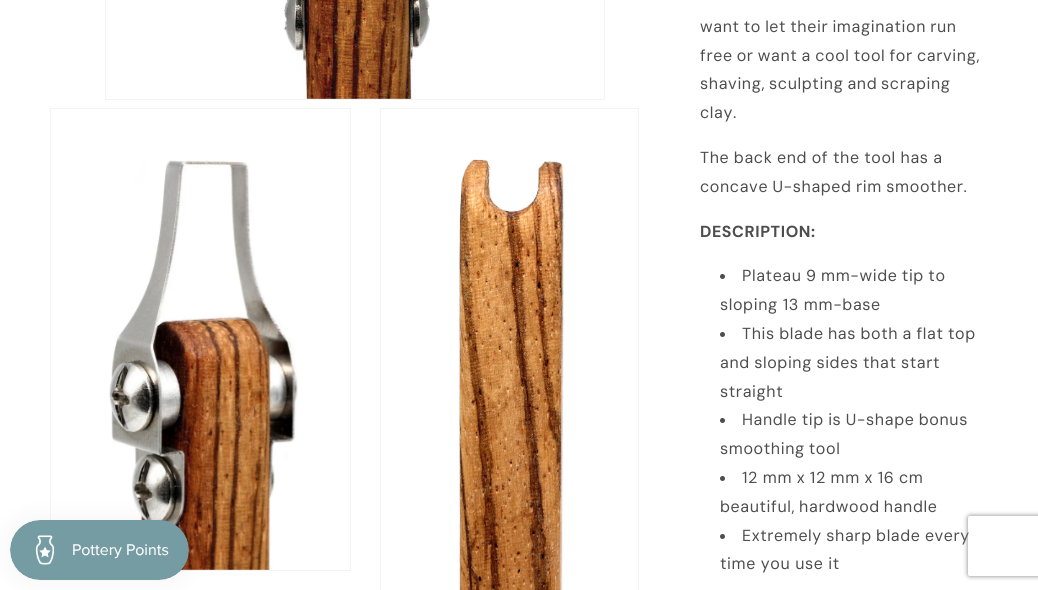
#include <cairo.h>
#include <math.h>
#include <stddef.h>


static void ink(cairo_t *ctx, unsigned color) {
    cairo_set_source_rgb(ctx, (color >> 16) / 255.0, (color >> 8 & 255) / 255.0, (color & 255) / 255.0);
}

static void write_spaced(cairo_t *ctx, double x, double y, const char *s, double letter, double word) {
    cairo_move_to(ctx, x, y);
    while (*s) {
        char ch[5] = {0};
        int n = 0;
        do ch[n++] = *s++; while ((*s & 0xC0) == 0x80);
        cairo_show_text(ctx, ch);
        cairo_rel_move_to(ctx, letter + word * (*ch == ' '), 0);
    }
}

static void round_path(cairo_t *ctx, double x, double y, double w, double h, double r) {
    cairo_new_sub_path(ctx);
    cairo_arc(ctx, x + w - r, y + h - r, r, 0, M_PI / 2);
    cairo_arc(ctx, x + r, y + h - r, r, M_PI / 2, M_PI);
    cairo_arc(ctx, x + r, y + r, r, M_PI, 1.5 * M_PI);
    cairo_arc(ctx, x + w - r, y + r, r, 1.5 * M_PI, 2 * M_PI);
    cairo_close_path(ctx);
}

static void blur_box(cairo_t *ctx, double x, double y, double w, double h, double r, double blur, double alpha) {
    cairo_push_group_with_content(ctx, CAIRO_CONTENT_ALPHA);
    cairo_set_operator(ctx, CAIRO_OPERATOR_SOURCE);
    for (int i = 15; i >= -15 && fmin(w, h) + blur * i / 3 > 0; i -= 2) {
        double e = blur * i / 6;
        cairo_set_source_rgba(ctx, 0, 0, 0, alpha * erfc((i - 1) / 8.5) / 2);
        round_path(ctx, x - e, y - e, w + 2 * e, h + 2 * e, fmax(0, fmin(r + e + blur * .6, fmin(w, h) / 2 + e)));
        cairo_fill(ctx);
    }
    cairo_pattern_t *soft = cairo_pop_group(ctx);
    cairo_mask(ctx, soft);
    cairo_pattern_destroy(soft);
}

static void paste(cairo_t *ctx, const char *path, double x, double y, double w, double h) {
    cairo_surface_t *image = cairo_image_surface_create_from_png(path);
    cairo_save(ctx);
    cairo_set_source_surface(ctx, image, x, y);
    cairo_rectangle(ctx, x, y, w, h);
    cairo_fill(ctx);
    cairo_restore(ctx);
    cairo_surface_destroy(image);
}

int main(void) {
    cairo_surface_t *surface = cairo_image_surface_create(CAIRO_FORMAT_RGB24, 1038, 590);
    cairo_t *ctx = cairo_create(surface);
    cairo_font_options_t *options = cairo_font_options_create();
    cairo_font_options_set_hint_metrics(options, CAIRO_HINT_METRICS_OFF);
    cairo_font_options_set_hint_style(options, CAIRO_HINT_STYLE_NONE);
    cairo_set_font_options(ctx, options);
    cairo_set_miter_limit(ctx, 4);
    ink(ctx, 0xFFFFFF);
    cairo_paint(ctx);
    cairo_rectangle(ctx, 50.5, 108.5, 300, 462);
    ink(ctx, 0xF3F3F3);
    cairo_set_line_width(ctx, 1);
    cairo_stroke(ctx);
    paste(ctx, "media/3.png", 109, 160, 189, 410);
    ink(ctx, 0x000000);
    blur_box(ctx, 10, 520, 179, 60, 30, 12.5, 0.05);
    paste(ctx, "media/1.png", 10, 520, 179, 60);
    cairo_rectangle(ctx, 105.5, -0.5, 499, 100);
    ink(ctx, 0xF3F3F3);
    cairo_stroke(ctx);
    paste(ctx, "media/2.png", 283, 0, 147, 99);
    cairo_rectangle(ctx, 380.5, 108.5, 258, 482);
    cairo_stroke(ctx);
    paste(ctx, "media/4.png", 458, 159, 107, 431);
    cairo_select_font_face(ctx, "DM Sans", CAIRO_FONT_SLANT_NORMAL, CAIRO_FONT_WEIGHT_NORMAL);
    cairo_set_font_size(ctx, 16);
    ink(ctx, 0x4D4D4D);
    write_spaced(ctx, 700, 32, "want to let their imagination run", 0.6, -0.75);
    write_spaced(ctx, 700, 61, "free or want a cool tool for carving,", 0.6, -0.75);
    write_spaced(ctx, 700, 89, "shaving, sculpting and scraping", 0.6, -1);
    write_spaced(ctx, 700, 118, "clay.", 0.6, 0);
    write_spaced(ctx, 700, 163, "The back end of the tool has a", 0.6, -0.25);
    write_spaced(ctx, 700, 192, "concave U-shaped rim smoother.", 0.6, -0.5);
    cairo_select_font_face(ctx, "DM Sans", CAIRO_FONT_SLANT_NORMAL, CAIRO_FONT_WEIGHT_BOLD);
    write_spaced(ctx, 700, 237, "DESCRIPTION:", 0.6, 0);
    cairo_new_path(ctx);
    cairo_arc(ctx, 722.5, 276.5, 2.5, 0, 2 * M_PI);
    cairo_fill(ctx);
    cairo_select_font_face(ctx, "DM Sans", CAIRO_FONT_SLANT_NORMAL, CAIRO_FONT_WEIGHT_NORMAL);
    write_spaced(ctx, 742, 281, "Plateau 9 mm-wide tip to", 0.6, -0.5);
    write_spaced(ctx, 720, 310, "sloping 13 mm-base", 0.6, 0);
    cairo_new_path(ctx);
    cairo_arc(ctx, 722.5, 334.5, 2.5, 0, 2 * M_PI);
    cairo_fill(ctx);
    write_spaced(ctx, 742, 339, "This blade has both a flat top", 0.6, -0.5);
    write_spaced(ctx, 720, 368, "and sloping sides that start", 0.6, -0.5);
    write_spaced(ctx, 720, 397, "straight", 0.6, 0);
    cairo_new_path(ctx);
    cairo_arc(ctx, 722.5, 420.5, 2.5, 0, 2 * M_PI);
    cairo_fill(ctx);
    write_spaced(ctx, 742, 425, "Handle tip is U-shape bonus", 0.6, -0.5);
    write_spaced(ctx, 720, 454, "smoothing tool", 0.6, -1);
    cairo_new_path(ctx);
    cairo_arc(ctx, 722.5, 478.5, 2.5, 0, 2 * M_PI);
    cairo_fill(ctx);
    write_spaced(ctx, 742, 483, "12 mm x 12 mm x 16 cm", 0.6, -0.25);
    write_spaced(ctx, 720, 512, "beautiful, hardwood handle", 0.6, -1);
    cairo_new_path(ctx);
    cairo_arc(ctx, 722.5, 536.5, 2.5, 0, 2 * M_PI);
    cairo_fill(ctx);
    write_spaced(ctx, 742, 541, "Extremely sharp blade every", 0.6, -0.5);
    write_spaced(ctx, 720, 569, "time you use it", 0.6, 0);
    cairo_save(ctx);
    cairo_set_fill_rule(ctx, CAIRO_FILL_RULE_EVEN_ODD);
    cairo_new_path(ctx);
    cairo_move_to(ctx, 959, 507);
    cairo_line_to(ctx, 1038, 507);
    cairo_line_to(ctx, 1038, 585);
    cairo_line_to(ctx, 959, 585);
    cairo_close_path(ctx);
    cairo_move_to(ctx, 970, 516);
    cairo_line_to(ctx, 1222, 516);
    cairo_curve_to(ctx, 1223, 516, 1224, 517, 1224, 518);
    cairo_line_to(ctx, 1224, 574);
    cairo_curve_to(ctx, 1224, 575, 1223, 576, 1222, 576);
    cairo_line_to(ctx, 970, 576);
    cairo_curve_to(ctx, 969, 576, 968, 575, 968, 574);
    cairo_line_to(ctx, 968, 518);
    cairo_curve_to(ctx, 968, 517, 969, 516, 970, 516);
    cairo_close_path(ctx);
    cairo_clip(ctx);
    ink(ctx, 0x808080);
    blur_box(ctx, 968, 516, 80, 60, 2, 2.5, 1);
    cairo_restore(ctx);
    cairo_surface_write_to_png(surface, "image.png");
    cairo_font_options_destroy(options);
    cairo_destroy(ctx);
    cairo_surface_destroy(surface);
    return 0;
}
